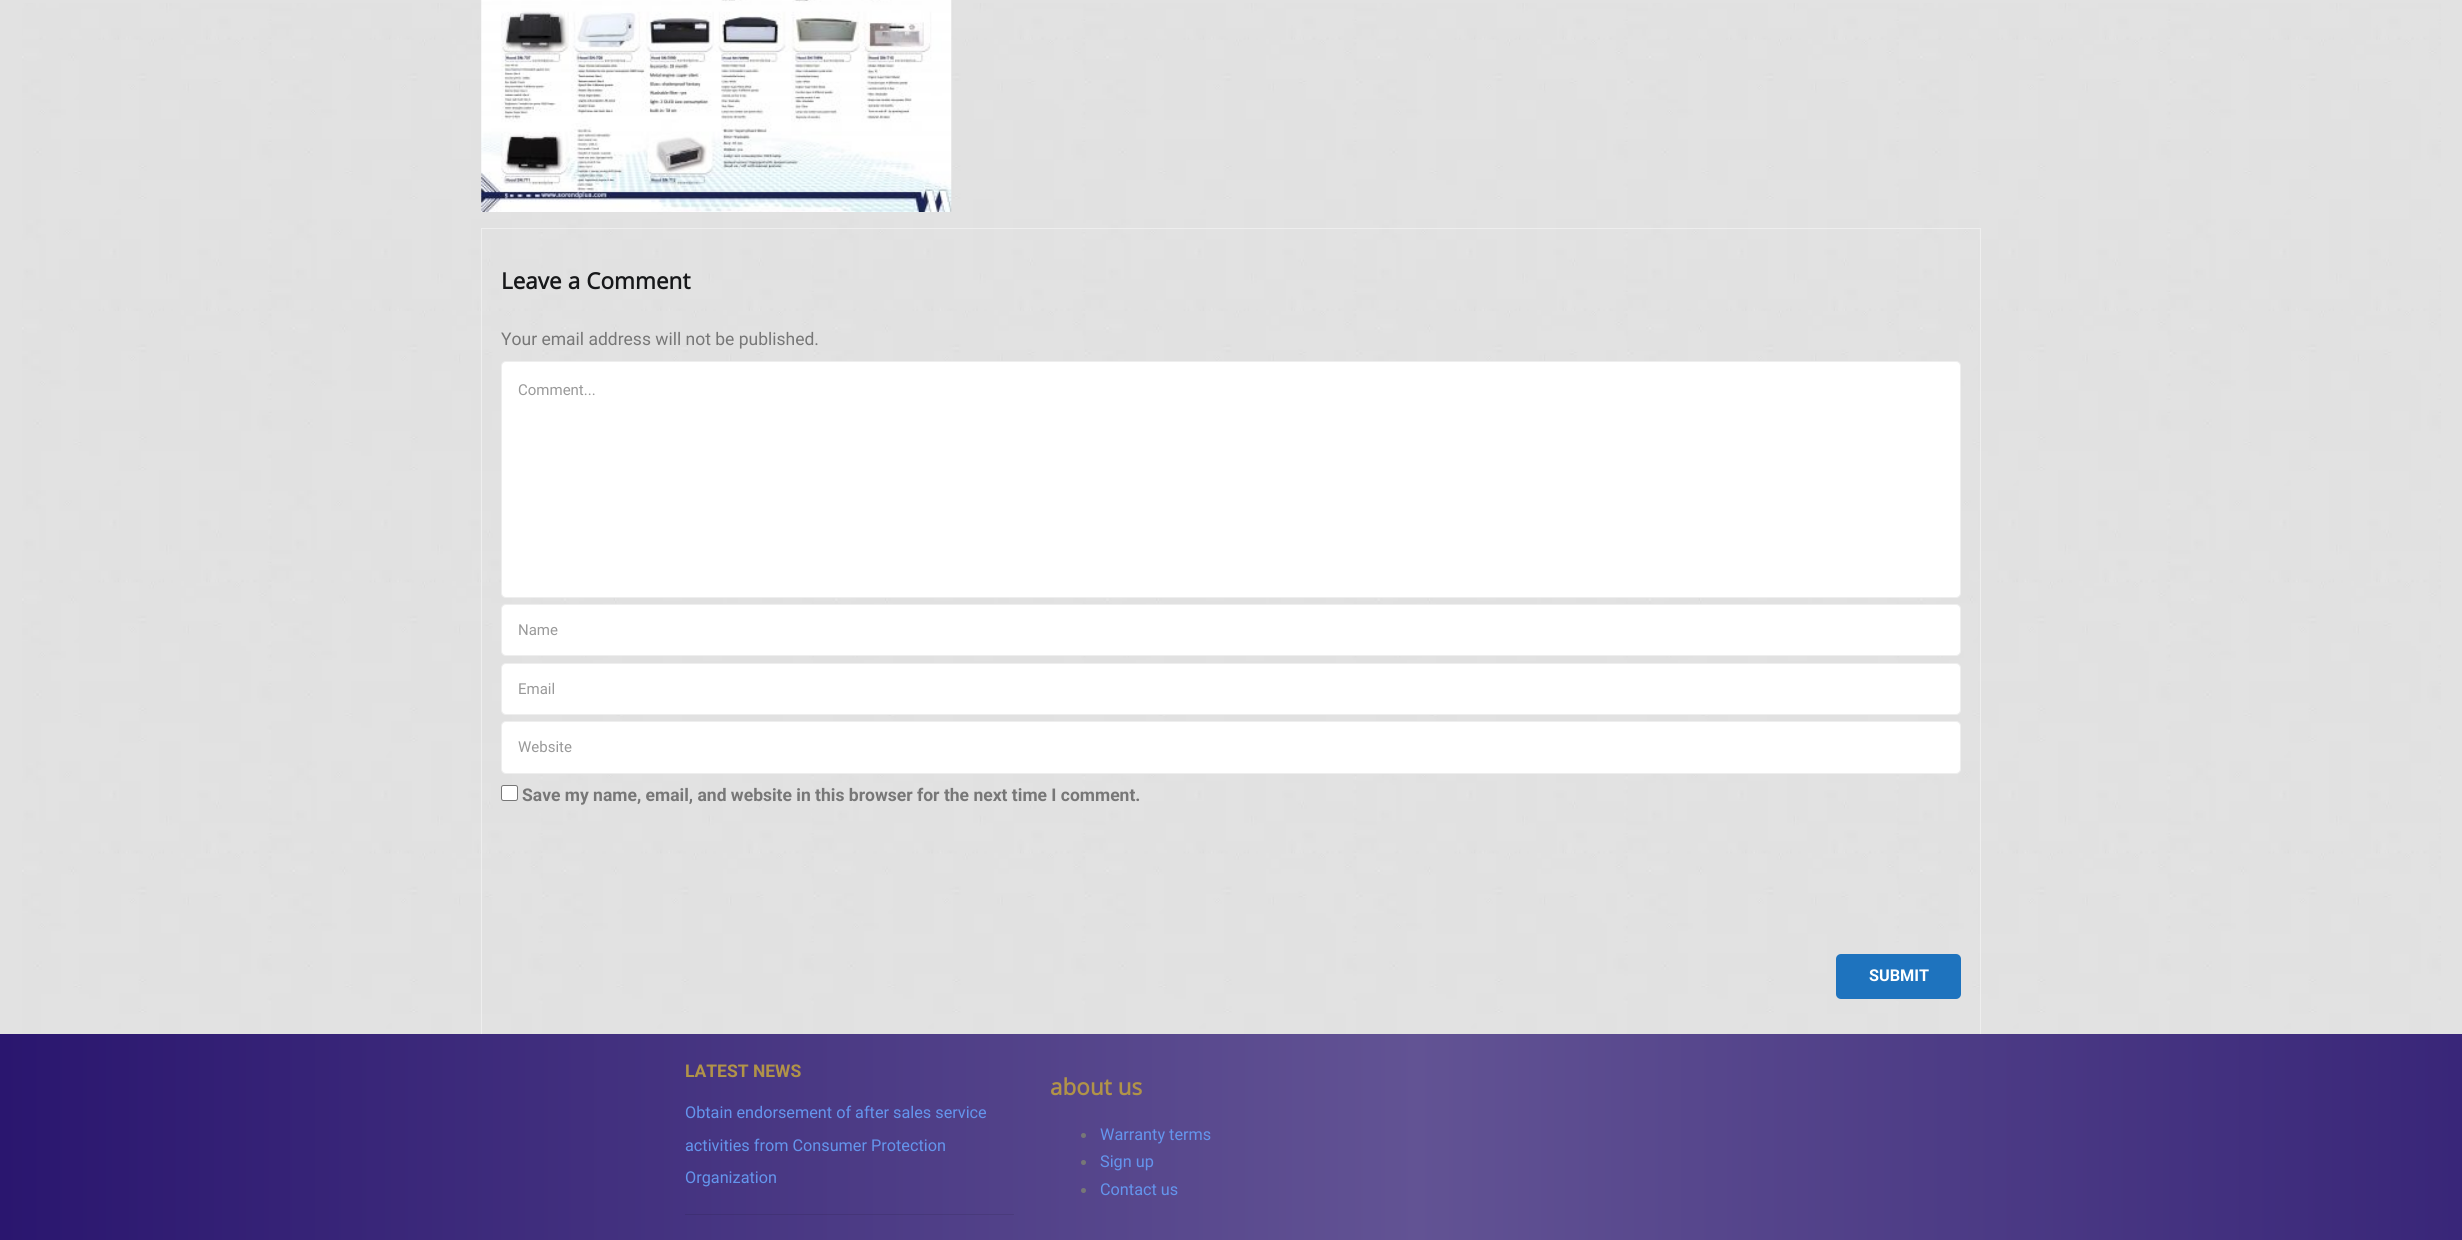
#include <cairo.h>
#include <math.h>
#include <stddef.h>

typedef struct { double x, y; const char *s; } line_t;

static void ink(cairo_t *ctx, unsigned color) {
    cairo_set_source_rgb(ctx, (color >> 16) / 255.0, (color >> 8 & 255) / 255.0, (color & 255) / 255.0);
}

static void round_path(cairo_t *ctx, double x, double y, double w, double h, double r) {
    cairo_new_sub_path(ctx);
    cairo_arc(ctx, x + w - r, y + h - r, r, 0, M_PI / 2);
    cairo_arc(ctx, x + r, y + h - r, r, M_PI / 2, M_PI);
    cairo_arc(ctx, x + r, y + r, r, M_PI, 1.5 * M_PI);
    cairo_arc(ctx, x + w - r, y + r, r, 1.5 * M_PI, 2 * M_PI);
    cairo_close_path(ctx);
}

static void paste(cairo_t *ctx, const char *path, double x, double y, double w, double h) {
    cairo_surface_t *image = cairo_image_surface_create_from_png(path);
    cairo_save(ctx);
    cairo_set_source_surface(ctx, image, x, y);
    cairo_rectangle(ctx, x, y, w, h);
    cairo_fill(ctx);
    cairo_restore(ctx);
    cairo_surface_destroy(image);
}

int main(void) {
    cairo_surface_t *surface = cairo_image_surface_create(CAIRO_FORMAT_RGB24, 2462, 1240);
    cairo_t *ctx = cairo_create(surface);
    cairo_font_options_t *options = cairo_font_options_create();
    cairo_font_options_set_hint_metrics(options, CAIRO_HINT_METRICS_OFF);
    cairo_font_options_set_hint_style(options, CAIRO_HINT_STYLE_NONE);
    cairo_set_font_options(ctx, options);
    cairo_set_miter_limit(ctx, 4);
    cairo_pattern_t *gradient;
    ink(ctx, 0xE2E2E2);
    cairo_paint(ctx);
    paste(ctx, "media/1.png", 22, 3, 2419, 1031);
    paste(ctx, "media/2.png", 481, 0, 471, 212);
    cairo_rectangle(ctx, 481.5, 228.5, 1499, 824);
    ink(ctx, 0xEEEEEE);
    cairo_set_line_width(ctx, 1);
    cairo_stroke(ctx);
    cairo_select_font_face(ctx, "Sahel", CAIRO_FONT_SLANT_NORMAL, CAIRO_FONT_WEIGHT_BOLD);
    cairo_set_font_size(ctx, 22.5);
    ink(ctx, 0x17181A);
    cairo_move_to(ctx, 501, 289);
    cairo_show_text(ctx, "Leave a Comment");
    cairo_select_font_face(ctx, "Roboto", CAIRO_FONT_SLANT_NORMAL, CAIRO_FONT_WEIGHT_NORMAL);
    cairo_set_font_size(ctx, 17.5);
    ink(ctx, 0x777777);
    cairo_move_to(ctx, 501, 345);
    cairo_show_text(ctx, "Your email address will not be published.");
    ink(ctx, 0xFFFFFF);
    round_path(ctx, 501.5, 361.5, 1459, 236, 4.5);
    cairo_fill_preserve(ctx);
    ink(ctx, 0xEEEEEE);
    cairo_stroke(ctx);
    cairo_set_font_size(ctx, 15);
    ink(ctx, 0x999999);
    cairo_move_to(ctx, 518, 395);
    cairo_show_text(ctx, "Comment...");
    ink(ctx, 0xFFFFFF);
    round_path(ctx, 501.5, 604.5, 1459, 51, 4.5);
    cairo_fill_preserve(ctx);
    ink(ctx, 0xEEEEEE);
    cairo_stroke(ctx);
    ink(ctx, 0x999999);
    cairo_move_to(ctx, 518, 635);
    cairo_show_text(ctx, "Name");
    ink(ctx, 0xFFFFFF);
    round_path(ctx, 501.5, 663.5, 1459, 51, 4.5);
    cairo_fill_preserve(ctx);
    ink(ctx, 0xEEEEEE);
    cairo_stroke(ctx);
    ink(ctx, 0x999999);
    cairo_move_to(ctx, 518, 694);
    cairo_show_text(ctx, "Email");
    ink(ctx, 0xFFFFFF);
    round_path(ctx, 501.5, 721.5, 1459, 52, 4.5);
    cairo_fill_preserve(ctx);
    ink(ctx, 0xEEEEEE);
    cairo_stroke(ctx);
    ink(ctx, 0x999999);
    cairo_move_to(ctx, 518, 752);
    cairo_show_text(ctx, "Website");
    ink(ctx, 0xFFFFFF);
    round_path(ctx, 501.5, 785.5, 16, 15, 2);
    cairo_fill_preserve(ctx);
    ink(ctx, 0x767676);
    cairo_stroke(ctx);
    cairo_select_font_face(ctx, "Roboto", CAIRO_FONT_SLANT_NORMAL, CAIRO_FONT_WEIGHT_BOLD);
    cairo_set_font_size(ctx, 17.5);
    ink(ctx, 0x777777);
    cairo_move_to(ctx, 522, 801);
    cairo_show_text(ctx, "Save my name, email, and website in this browser for the next time I comment.");
    ink(ctx, 0x1E73BE);
    round_path(ctx, 1836, 954, 125, 45, 5);
    cairo_fill(ctx);
    cairo_set_font_size(ctx, 16.25);
    ink(ctx, 0xFFFFFF);
    cairo_move_to(ctx, 1869, 981);
    cairo_show_text(ctx, "SUBMIT");
    gradient = cairo_pattern_create_linear(0, 1156, 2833, 1156);
    cairo_pattern_add_color_stop_rgba(gradient, 0, 0.165, 0.086, 0.435, 1);
    cairo_pattern_add_color_stop_rgba(gradient, 0.5, 0.384, 0.325, 0.58, 1);
    cairo_pattern_add_color_stop_rgba(gradient, 1, 0.165, 0.086, 0.435, 1);
    cairo_set_source(ctx, gradient);
    cairo_pattern_destroy(gradient);
    cairo_rectangle(ctx, 0, 1034, 2462, 206);
    cairo_fill(ctx);
    cairo_set_font_size(ctx, 17.5);
    ink(ctx, 0xB19348);
    cairo_move_to(ctx, 685, 1077);
    cairo_show_text(ctx, "LATEST NEWS");
    cairo_set_source_rgba(ctx, 0, 0, 0, 0.1);
    cairo_rectangle(ctx, 685, 1214, 329, 1);
    cairo_fill(ctx);
    cairo_select_font_face(ctx, "Roboto", CAIRO_FONT_SLANT_NORMAL, CAIRO_FONT_WEIGHT_NORMAL);
    cairo_set_font_size(ctx, 16.25);
    ink(ctx, 0x6495ED);
    {
        static const line_t items[] = {
            {685, 1118, "Obtain endorsement of after sales service"},
            {685, 1151, "activities from Consumer Protection"},
            {685, 1183, "Organization"},
        };
        for (size_t i = 0; i < sizeof items / sizeof *items; i++) {
            cairo_move_to(ctx, items[i].x, items[i].y);
            cairo_show_text(ctx, items[i].s);
        }
    }
    cairo_select_font_face(ctx, "Sahel", CAIRO_FONT_SLANT_NORMAL, CAIRO_FONT_WEIGHT_BOLD);
    cairo_set_font_size(ctx, 22.5);
    ink(ctx, 0xB19348);
    cairo_move_to(ctx, 1050, 1095);
    cairo_show_text(ctx, "about us");
    ink(ctx, 0x777777);
    cairo_new_path(ctx);
    cairo_arc(ctx, 1083.5, 1135.5, 2.5, 0, 2 * M_PI);
    cairo_fill(ctx);
    cairo_select_font_face(ctx, "Roboto", CAIRO_FONT_SLANT_NORMAL, CAIRO_FONT_WEIGHT_NORMAL);
    cairo_set_font_size(ctx, 16.25);
    ink(ctx, 0x6495ED);
    cairo_move_to(ctx, 1100, 1140);
    cairo_show_text(ctx, "Warranty terms");
    ink(ctx, 0x777777);
    cairo_new_path(ctx);
    cairo_arc(ctx, 1083.5, 1162.5, 2.5, 0, 2 * M_PI);
    cairo_fill(ctx);
    ink(ctx, 0x6495ED);
    cairo_move_to(ctx, 1100, 1167);
    cairo_show_text(ctx, "Sign up");
    ink(ctx, 0x777777);
    cairo_new_path(ctx);
    cairo_arc(ctx, 1083.5, 1190.5, 2.5, 0, 2 * M_PI);
    cairo_fill(ctx);
    ink(ctx, 0x6495ED);
    cairo_move_to(ctx, 1100, 1195);
    cairo_show_text(ctx, "Contact us");
    cairo_surface_write_to_png(surface, "image.png");
    cairo_font_options_destroy(options);
    cairo_destroy(ctx);
    cairo_surface_destroy(surface);
    return 0;
}
